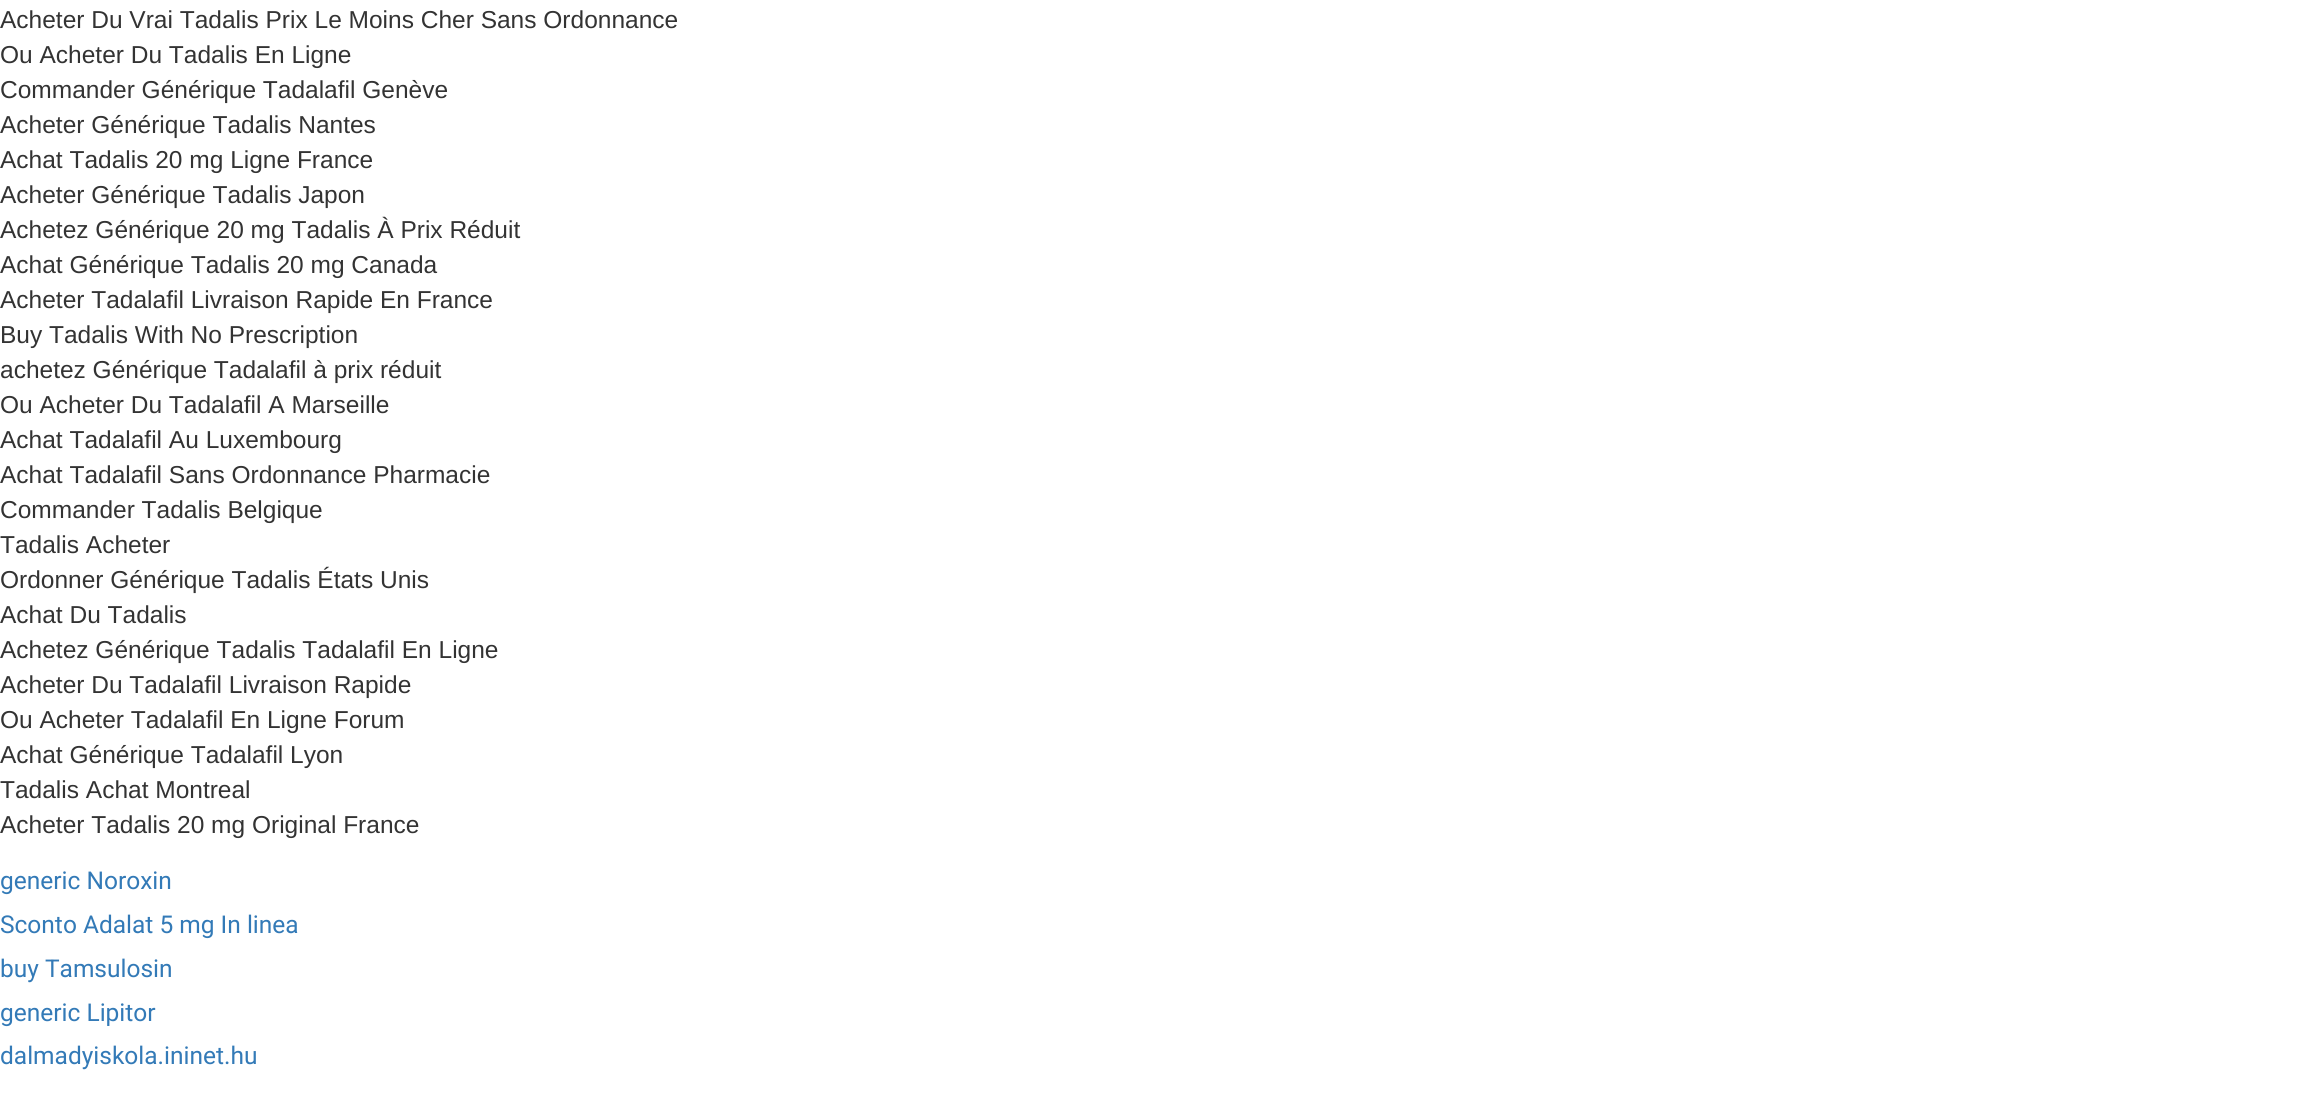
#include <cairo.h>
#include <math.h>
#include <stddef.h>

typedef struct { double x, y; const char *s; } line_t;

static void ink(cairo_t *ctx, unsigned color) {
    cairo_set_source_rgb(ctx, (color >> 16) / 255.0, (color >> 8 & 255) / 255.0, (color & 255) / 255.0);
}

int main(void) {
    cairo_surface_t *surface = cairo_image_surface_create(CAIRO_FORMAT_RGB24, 2323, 1110);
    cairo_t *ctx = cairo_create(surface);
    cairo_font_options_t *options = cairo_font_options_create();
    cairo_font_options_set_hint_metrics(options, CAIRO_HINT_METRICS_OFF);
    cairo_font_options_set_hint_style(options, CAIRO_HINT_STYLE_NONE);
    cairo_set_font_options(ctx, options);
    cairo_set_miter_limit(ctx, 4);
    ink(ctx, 0xFFFFFF);
    cairo_paint(ctx);
    cairo_select_font_face(ctx, "Liberation Sans", CAIRO_FONT_SLANT_NORMAL, CAIRO_FONT_WEIGHT_NORMAL);
    cairo_set_font_size(ctx, 24.5);
    ink(ctx, 0x333333);
    {
        static const line_t items[] = {
            {0, 28, "Acheter Du Vrai Tadalis Prix Le Moins Cher Sans Ordonnance"},
            {0, 63, "Ou Acheter Du Tadalis En Ligne"},
            {0, 98, "Commander Générique Tadalafil Genève"},
            {0, 133, "Acheter Générique Tadalis Nantes"},
            {0, 168, "Achat Tadalis 20 mg Ligne France"},
            {0, 203, "Acheter Générique Tadalis Japon"},
            {0, 238, "Achetez Générique 20 mg Tadalis À Prix Réduit"},
            {0, 273, "Achat Générique Tadalis 20 mg Canada"},
            {0, 308, "Acheter Tadalafil Livraison Rapide En France"},
            {0, 343, "Buy Tadalis With No Prescription"},
            {0, 378, "achetez Générique Tadalafil à prix réduit"},
            {0, 413, "Ou Acheter Du Tadalafil A Marseille"},
            {0, 448, "Achat Tadalafil Au Luxembourg"},
            {0, 483, "Achat Tadalafil Sans Ordonnance Pharmacie"},
            {0, 518, "Commander Tadalis Belgique"},
            {0, 553, "Tadalis Acheter"},
            {0, 588, "Ordonner Générique Tadalis États Unis"},
            {0, 623, "Achat Du Tadalis"},
            {0, 658, "Achetez Générique Tadalis Tadalafil En Ligne"},
            {0, 693, "Acheter Du Tadalafil Livraison Rapide"},
            {0, 728, "Ou Acheter Tadalafil En Ligne Forum"},
            {0, 763, "Achat Générique Tadalafil Lyon"},
            {0, 798, "Tadalis Achat Montreal"},
            {0, 833, "Acheter Tadalis 20 mg Original France"},
        };
        for (size_t i = 0; i < sizeof items / sizeof *items; i++) {
            cairo_move_to(ctx, items[i].x, items[i].y);
            cairo_show_text(ctx, items[i].s);
        }
    }
    cairo_select_font_face(ctx, "Roboto", CAIRO_FONT_SLANT_NORMAL, CAIRO_FONT_WEIGHT_NORMAL);
    ink(ctx, 0x337AB7);
    {
        static const line_t items[] = {
            {0, 889, "generic Noroxin"},
            {0, 933, "Sconto Adalat 5 mg In linea"},
            {0, 977, "buy Tamsulosin"},
            {0, 1021, "generic Lipitor"},
            {0, 1064, "dalmadyiskola.ininet.hu"},
        };
        for (size_t i = 0; i < sizeof items / sizeof *items; i++) {
            cairo_move_to(ctx, items[i].x, items[i].y);
            cairo_show_text(ctx, items[i].s);
        }
    }
    cairo_surface_write_to_png(surface, "image.png");
    cairo_font_options_destroy(options);
    cairo_destroy(ctx);
    cairo_surface_destroy(surface);
    return 0;
}
